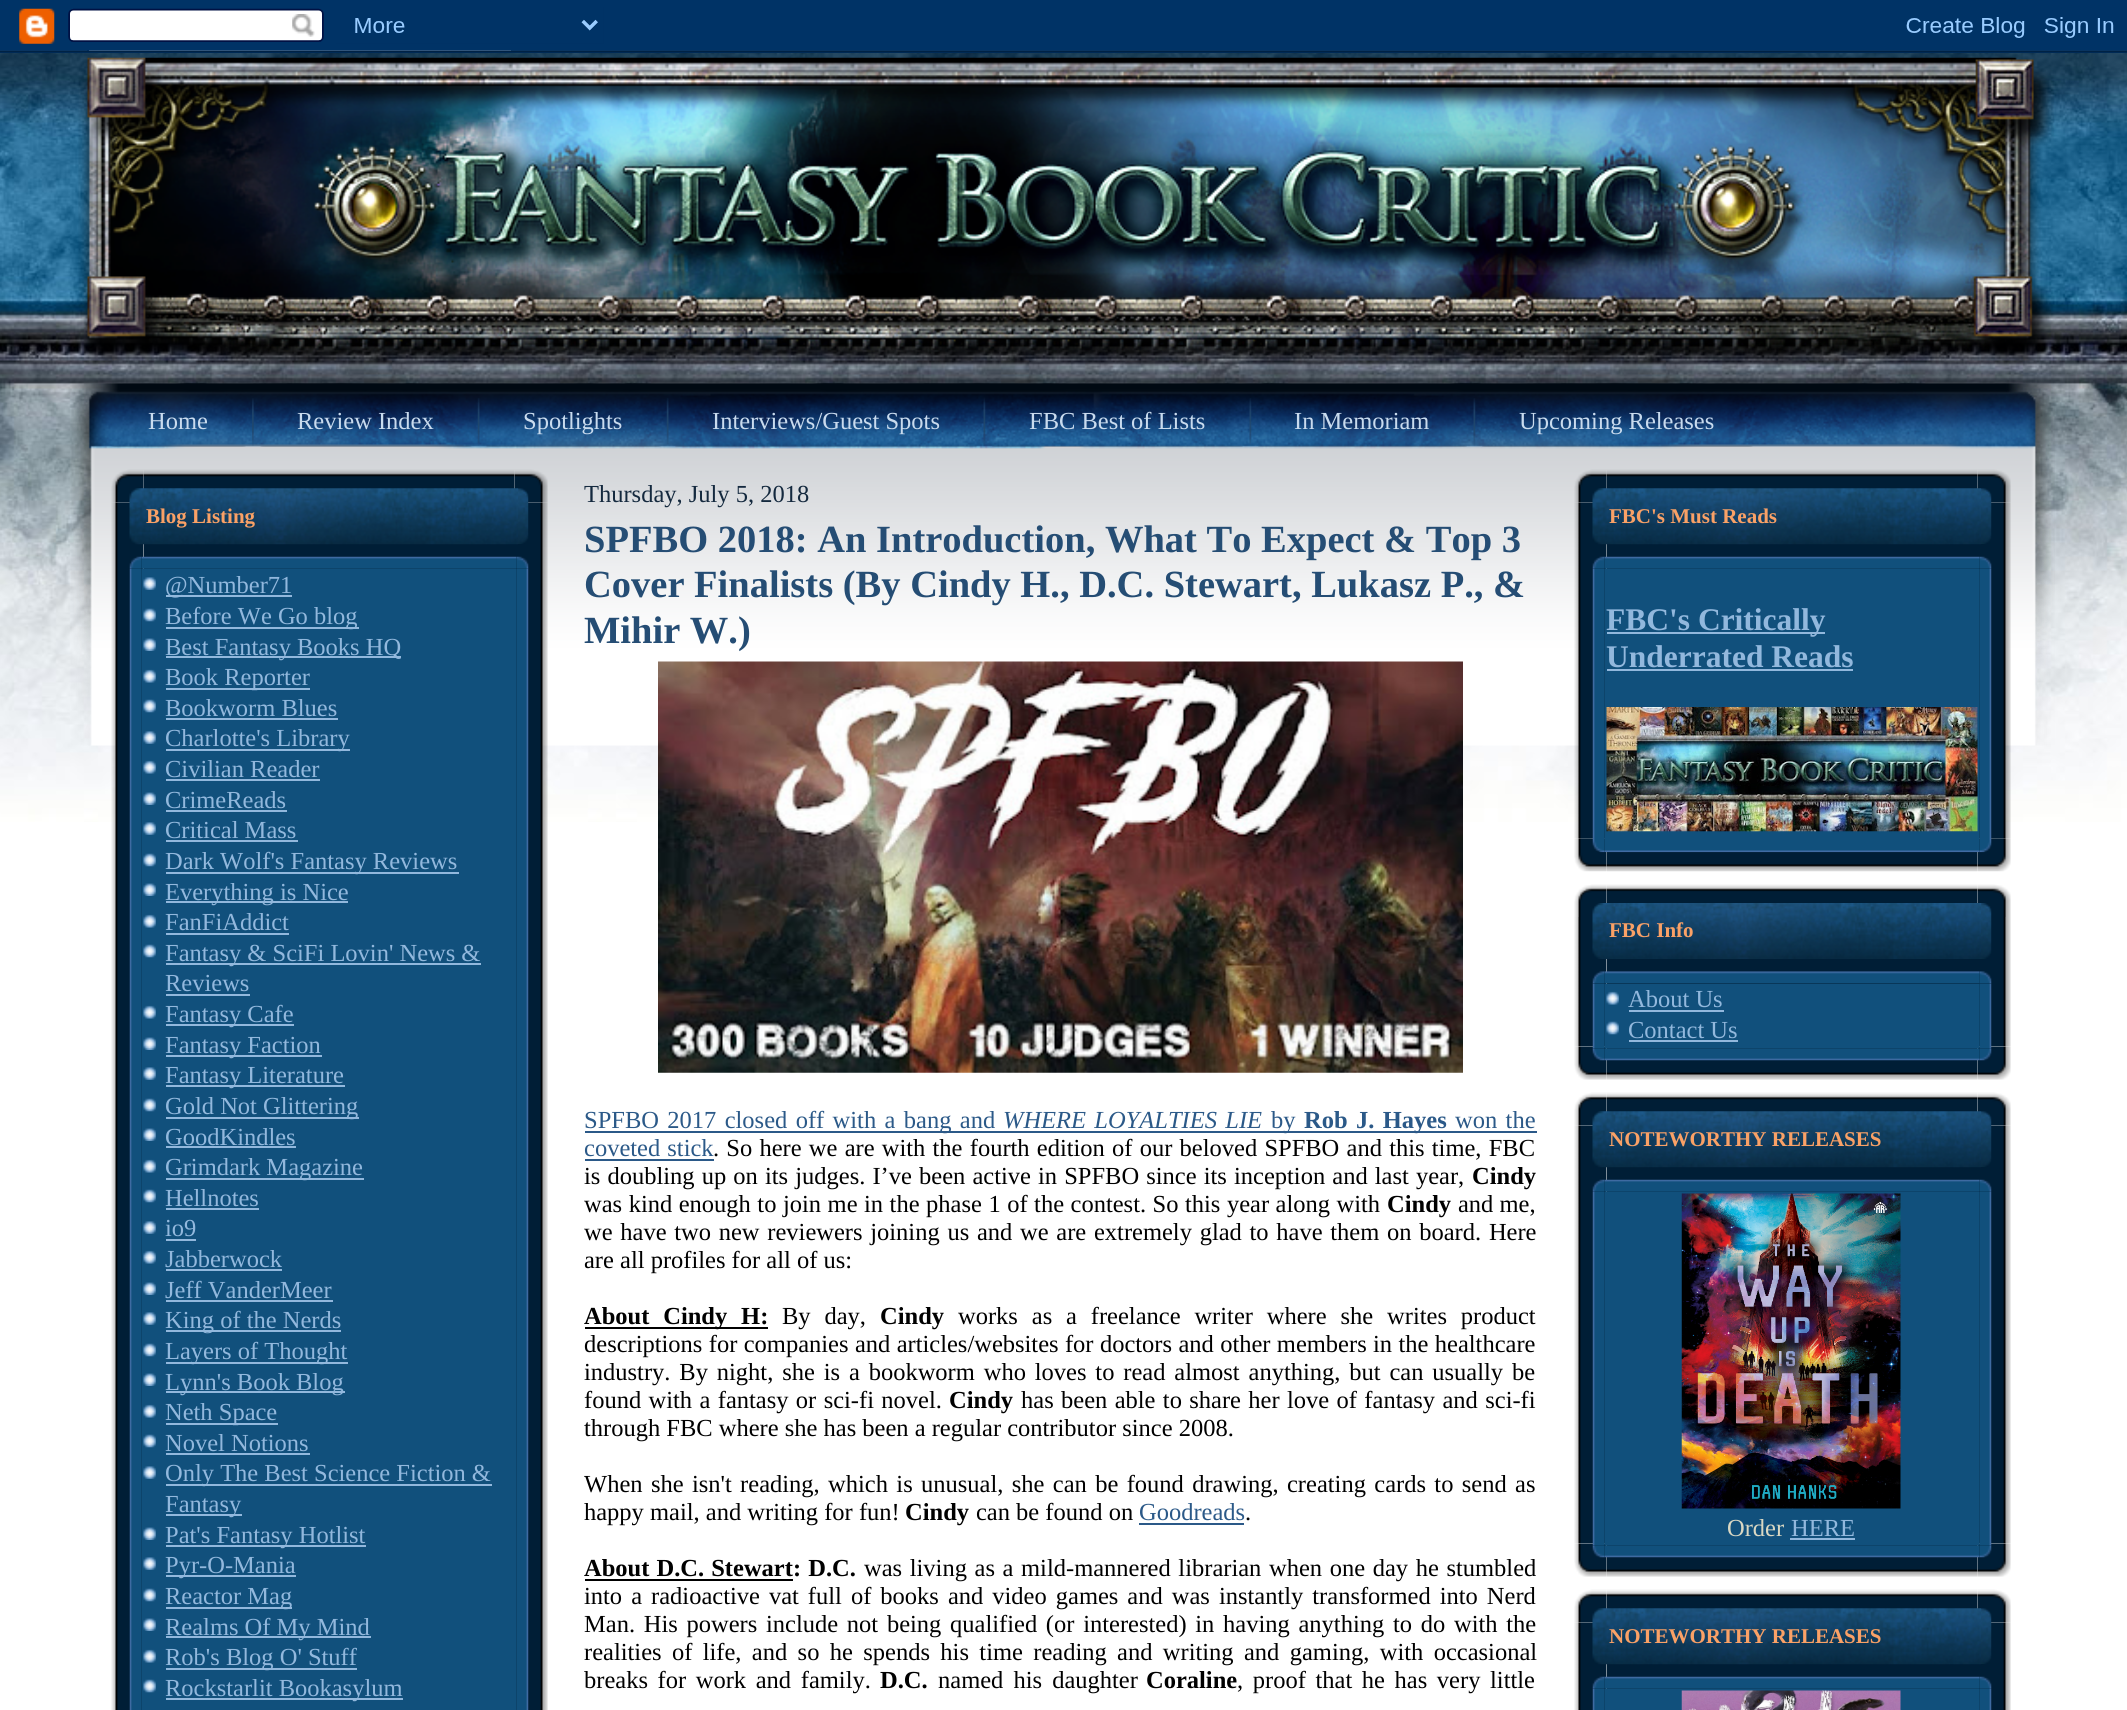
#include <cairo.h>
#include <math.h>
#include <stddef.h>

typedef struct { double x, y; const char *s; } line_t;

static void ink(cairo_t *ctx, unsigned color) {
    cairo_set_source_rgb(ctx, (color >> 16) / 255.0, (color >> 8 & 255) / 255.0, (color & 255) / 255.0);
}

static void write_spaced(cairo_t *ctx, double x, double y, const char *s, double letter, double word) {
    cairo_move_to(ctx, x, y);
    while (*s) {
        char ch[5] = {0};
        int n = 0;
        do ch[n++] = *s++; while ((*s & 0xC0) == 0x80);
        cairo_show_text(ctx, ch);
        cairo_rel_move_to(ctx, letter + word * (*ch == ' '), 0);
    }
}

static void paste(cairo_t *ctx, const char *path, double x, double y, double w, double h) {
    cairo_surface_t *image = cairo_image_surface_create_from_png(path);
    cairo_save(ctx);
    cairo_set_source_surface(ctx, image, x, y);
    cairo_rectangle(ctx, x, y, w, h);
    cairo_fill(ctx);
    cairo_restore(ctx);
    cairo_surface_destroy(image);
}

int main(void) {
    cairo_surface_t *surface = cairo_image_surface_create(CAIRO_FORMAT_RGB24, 2127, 1710);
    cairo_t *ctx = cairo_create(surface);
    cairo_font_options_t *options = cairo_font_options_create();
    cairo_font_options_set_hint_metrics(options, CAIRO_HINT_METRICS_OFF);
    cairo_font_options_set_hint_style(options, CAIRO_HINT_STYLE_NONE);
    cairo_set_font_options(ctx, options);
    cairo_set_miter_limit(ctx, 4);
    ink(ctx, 0xFFFFFF);
    cairo_paint(ctx);
    paste(ctx, "media/1.png", 0, 53, 2127, 769);
    paste(ctx, "media/2.png", 0, 0, 2127, 53);
    paste(ctx, "media/3.png", 78, 57, 1976, 311);
    paste(ctx, "media/4.png", 71, 383, 1984, 363);
    cairo_select_font_face(ctx, "Liberation Serif", CAIRO_FONT_SLANT_NORMAL, CAIRO_FONT_WEIGHT_NORMAL);
    cairo_set_font_size(ctx, 24.5);
    ink(ctx, 0xC9DBEE);
    cairo_move_to(ctx, 148, 429);
    cairo_show_text(ctx, "Home");
    paste(ctx, "media/5.png", 111, 445, 131, 2);
    paste(ctx, "media/6.png", 241, 445, 5, 2);
    paste(ctx, "media/7.png", 252, 398, 2, 48);
    cairo_move_to(ctx, 297, 429);
    cairo_show_text(ctx, "Review Index");
    paste(ctx, "media/8.png", 260, 445, 208, 2);
    paste(ctx, "media/9.png", 467, 445, 5, 2);
    paste(ctx, "media/10.png", 477, 398, 3, 47);
    cairo_move_to(ctx, 523, 429);
    cairo_show_text(ctx, "Spotlights");
    paste(ctx, "media/11.png", 486, 445, 171, 2);
    paste(ctx, "media/12.png", 656, 445, 5, 2);
    paste(ctx, "media/13.png", 666, 398, 3, 47);
    cairo_move_to(ctx, 712, 429);
    cairo_show_text(ctx, "Interviews/Guest Spots");
    paste(ctx, "media/14.png", 675, 445, 298, 2);
    paste(ctx, "media/15.png", 973, 445, 4, 2);
    paste(ctx, "media/16.png", 983, 397, 3, 47);
    cairo_move_to(ctx, 1029, 429);
    cairo_show_text(ctx, "FBC Best of Lists");
    paste(ctx, "media/17.png", 992, 445, 247, 2);
    paste(ctx, "media/18.png", 1239, 445, 4, 2);
    paste(ctx, "media/19.png", 1249, 398, 3, 47);
    cairo_move_to(ctx, 1294, 429);
    cairo_show_text(ctx, "In Memoriam");
    paste(ctx, "media/20.png", 1258, 445, 205, 2);
    paste(ctx, "media/21.png", 1463, 445, 4, 2);
    paste(ctx, "media/22.png", 1473, 398, 3, 47);
    cairo_move_to(ctx, 1519, 429);
    cairo_show_text(ctx, "Upcoming Releases");
    paste(ctx, "media/23.png", 1482, 445, 267, 2);
    paste(ctx, "media/24.png", 1748, 445, 5, 2);
    paste(ctx, "media/25.png", 111, 469, 33, 34);
    paste(ctx, "media/27.png", 514, 469, 34, 34);
    paste(ctx, "media/26.png", 143, 469, 372, 20);
    paste(ctx, "media/28.png", 111, 502, 33, 1208);
    paste(ctx, "media/40.png", 515, 502, 33, 1208);
    ink(ctx, 0x001E36);
    cairo_rectangle(ctx, 144, 544, 371, 25);
    cairo_fill(ctx);
    paste(ctx, "media/29.png", 129, 488, 389, 57);
    paste(ctx, "media/30.png", 518, 488, 11, 56);
    cairo_select_font_face(ctx, "Liberation Serif", CAIRO_FONT_SLANT_NORMAL, CAIRO_FONT_WEIGHT_BOLD);
    cairo_set_font_size(ctx, 21);
    ink(ctx, 0xFAA166);
    cairo_move_to(ctx, 146, 523);
    cairo_show_text(ctx, "Blog Listing");
    paste(ctx, "media/31.png", 129, 556, 13, 13);
    paste(ctx, "media/32.png", 142, 556, 374, 13);
    paste(ctx, "media/33.png", 516, 556, 13, 13);
    paste(ctx, "media/34.png", 129, 569, 13, 1141);
    ink(ctx, 0x11507C);
    cairo_rectangle(ctx, 142, 569, 374, 1141);
    cairo_fill(ctx);
    paste(ctx, "media/35.png", 516, 569, 13, 1141);
    paste(ctx, "media/36.png", 143, 577, 13, 13);
    ink(ctx, 0x92B8DD);
    cairo_rectangle(ctx, 166, 595, 126, 2);
    cairo_fill(ctx);
    cairo_select_font_face(ctx, "Liberation Serif", CAIRO_FONT_SLANT_NORMAL, CAIRO_FONT_WEIGHT_NORMAL);
    cairo_set_font_size(ctx, 24.5);
    cairo_move_to(ctx, 165, 593);
    cairo_show_text(ctx, "@Number71");
    paste(ctx, "media/37.png", 143, 608, 13, 14);
    cairo_rectangle(ctx, 166, 627, 193, 2);
    cairo_fill(ctx);
    cairo_move_to(ctx, 165, 624);
    cairo_show_text(ctx, "Before We Go blog");
    paste(ctx, "media/38.png", 143, 638, 13, 13);
    cairo_rectangle(ctx, 166, 656, 235, 2);
    cairo_fill(ctx);
    cairo_move_to(ctx, 165, 655);
    cairo_show_text(ctx, "Best Fantasy Books HQ");
    paste(ctx, "media/39.png", 143, 669, 13, 14);
    cairo_rectangle(ctx, 166, 688, 144, 2);
    cairo_fill(ctx);
    cairo_move_to(ctx, 165, 685);
    cairo_show_text(ctx, "Book Reporter");
    paste(ctx, "media/37.png", 143, 699, 13, 14);
    cairo_move_to(ctx, 165, 716);
    cairo_show_text(ctx, "Bookworm Blues");
    cairo_rectangle(ctx, 166, 718, 172, 2);
    cairo_fill(ctx);
    paste(ctx, "media/36.png", 143, 731, 13, 13);
    cairo_rectangle(ctx, 166, 749, 184, 2);
    cairo_fill(ctx);
    cairo_move_to(ctx, 165, 746);
    cairo_show_text(ctx, "Charlotte's Library");
    paste(ctx, "media/39.png", 143, 760, 13, 14);
    cairo_move_to(ctx, 165, 777);
    cairo_show_text(ctx, "Civilian Reader");
    cairo_rectangle(ctx, 166, 779, 154, 2);
    cairo_fill(ctx);
    paste(ctx, "media/38.png", 143, 792, 13, 13);
    cairo_move_to(ctx, 165, 808);
    cairo_show_text(ctx, "CrimeReads");
    cairo_rectangle(ctx, 166, 810, 121, 2);
    cairo_fill(ctx);
    paste(ctx, "media/36.png", 143, 822, 13, 13);
    cairo_move_to(ctx, 165, 838);
    cairo_show_text(ctx, "Critical Mass");
    cairo_rectangle(ctx, 166, 840, 132, 2);
    cairo_fill(ctx);
    paste(ctx, "media/37.png", 143, 853, 13, 14);
    cairo_rectangle(ctx, 166, 872, 293, 2);
    cairo_fill(ctx);
    cairo_move_to(ctx, 165, 869);
    cairo_show_text(ctx, "Dark Wolf's Fantasy Reviews");
    paste(ctx, "media/38.png", 143, 883, 13, 13);
    cairo_rectangle(ctx, 166, 901, 182, 2);
    cairo_fill(ctx);
    cairo_move_to(ctx, 165, 900);
    cairo_show_text(ctx, "Everything is Nice");
    paste(ctx, "media/39.png", 143, 914, 13, 14);
    cairo_move_to(ctx, 165, 930);
    cairo_show_text(ctx, "FanFiAddict");
    cairo_rectangle(ctx, 166, 933, 123, 2);
    cairo_fill(ctx);
    paste(ctx, "media/37.png", 143, 944, 13, 14);
    cairo_rectangle(ctx, 166, 963, 315, 2);
    cairo_fill(ctx);
    cairo_move_to(ctx, 165, 961);
    cairo_show_text(ctx, "Fantasy & SciFi Lovin' News &");
    cairo_move_to(ctx, 165, 991);
    cairo_show_text(ctx, "Reviews");
    cairo_rectangle(ctx, 166, 994, 84, 2);
    cairo_fill(ctx);
    paste(ctx, "media/39.png", 143, 1005, 13, 14);
    cairo_rectangle(ctx, 166, 1024, 128, 2);
    cairo_fill(ctx);
    cairo_move_to(ctx, 165, 1022);
    cairo_show_text(ctx, "Fantasy Cafe");
    paste(ctx, "media/38.png", 143, 1037, 13, 13);
    cairo_rectangle(ctx, 166, 1055, 156, 2);
    cairo_fill(ctx);
    cairo_move_to(ctx, 165, 1053);
    cairo_show_text(ctx, "Fantasy Faction");
    paste(ctx, "media/36.png", 143, 1067, 13, 13);
    cairo_rectangle(ctx, 166, 1085, 179, 2);
    cairo_fill(ctx);
    cairo_move_to(ctx, 165, 1083);
    cairo_show_text(ctx, "Fantasy Literature");
    paste(ctx, "media/37.png", 143, 1098, 13, 14);
    cairo_rectangle(ctx, 166, 1117, 193, 2);
    cairo_fill(ctx);
    cairo_move_to(ctx, 165, 1114);
    cairo_show_text(ctx, "Gold Not Glittering");
    paste(ctx, "media/38.png", 143, 1128, 13, 13);
    cairo_move_to(ctx, 165, 1145);
    cairo_show_text(ctx, "GoodKindles");
    cairo_rectangle(ctx, 166, 1146, 130, 2);
    cairo_fill(ctx);
    paste(ctx, "media/39.png", 143, 1159, 13, 14);
    cairo_rectangle(ctx, 166, 1178, 198, 2);
    cairo_fill(ctx);
    cairo_move_to(ctx, 165, 1175);
    cairo_show_text(ctx, "Grimdark Magazine");
    paste(ctx, "media/37.png", 143, 1189, 13, 14);
    cairo_move_to(ctx, 165, 1206);
    cairo_show_text(ctx, "Hellnotes");
    cairo_rectangle(ctx, 166, 1208, 93, 2);
    cairo_fill(ctx);
    paste(ctx, "media/36.png", 143, 1221, 13, 13);
    cairo_move_to(ctx, 165, 1236);
    cairo_show_text(ctx, "io9");
    cairo_rectangle(ctx, 166, 1239, 30, 2);
    cairo_fill(ctx);
    paste(ctx, "media/39.png", 143, 1250, 13, 14);
    cairo_move_to(ctx, 165, 1267);
    cairo_show_text(ctx, "Jabberwock");
    cairo_rectangle(ctx, 166, 1269, 116, 2);
    cairo_fill(ctx);
    paste(ctx, "media/38.png", 143, 1282, 13, 13);
    cairo_move_to(ctx, 165, 1298);
    cairo_show_text(ctx, "Jeff VanderMeer");
    cairo_rectangle(ctx, 166, 1300, 167, 2);
    cairo_fill(ctx);
    paste(ctx, "media/36.png", 143, 1312, 13, 13);
    cairo_rectangle(ctx, 166, 1330, 175, 2);
    cairo_fill(ctx);
    cairo_move_to(ctx, 165, 1328);
    cairo_show_text(ctx, "King of the Nerds");
    paste(ctx, "media/37.png", 143, 1343, 13, 14);
    cairo_rectangle(ctx, 166, 1362, 182, 2);
    cairo_fill(ctx);
    cairo_move_to(ctx, 165, 1359);
    cairo_show_text(ctx, "Layers of Thought");
    paste(ctx, "media/38.png", 143, 1373, 13, 13);
    cairo_rectangle(ctx, 166, 1391, 179, 2);
    cairo_fill(ctx);
    cairo_move_to(ctx, 165, 1390);
    cairo_show_text(ctx, "Lynn's Book Blog");
    paste(ctx, "media/39.png", 143, 1404, 13, 14);
    cairo_rectangle(ctx, 166, 1423, 112, 2);
    cairo_fill(ctx);
    cairo_move_to(ctx, 165, 1420);
    cairo_show_text(ctx, "Neth Space");
    paste(ctx, "media/37.png", 143, 1434, 13, 14);
    cairo_move_to(ctx, 165, 1451);
    cairo_show_text(ctx, "Novel Notions");
    cairo_rectangle(ctx, 166, 1453, 144, 2);
    cairo_fill(ctx);
    paste(ctx, "media/36.png", 143, 1466, 13, 13);
    cairo_rectangle(ctx, 166, 1484, 326, 2);
    cairo_fill(ctx);
    cairo_move_to(ctx, 165, 1481);
    cairo_show_text(ctx, "Only The Best Science Fiction &");
    cairo_rectangle(ctx, 166, 1514, 76, 2);
    cairo_fill(ctx);
    cairo_move_to(ctx, 165, 1512);
    cairo_show_text(ctx, "Fantasy");
    paste(ctx, "media/38.png", 143, 1527, 13, 13);
    cairo_rectangle(ctx, 166, 1545, 200, 2);
    cairo_fill(ctx);
    cairo_move_to(ctx, 165, 1543);
    cairo_show_text(ctx, "Pat's Fantasy Hotlist");
    paste(ctx, "media/36.png", 143, 1557, 13, 13);
    cairo_rectangle(ctx, 166, 1575, 130, 2);
    cairo_fill(ctx);
    cairo_move_to(ctx, 165, 1573);
    cairo_show_text(ctx, "Pyr-O-Mania");
    paste(ctx, "media/37.png", 143, 1588, 13, 14);
    cairo_rectangle(ctx, 166, 1607, 126, 2);
    cairo_fill(ctx);
    cairo_move_to(ctx, 165, 1604);
    cairo_show_text(ctx, "Reactor Mag");
    paste(ctx, "media/38.png", 143, 1618, 13, 13);
    cairo_rectangle(ctx, 166, 1636, 205, 2);
    cairo_fill(ctx);
    cairo_move_to(ctx, 165, 1635);
    cairo_show_text(ctx, "Realms Of My Mind");
    paste(ctx, "media/39.png", 143, 1649, 13, 14);
    cairo_rectangle(ctx, 166, 1668, 191, 2);
    cairo_fill(ctx);
    cairo_move_to(ctx, 165, 1665);
    cairo_show_text(ctx, "Rob's Blog O' Stuff");
    paste(ctx, "media/37.png", 143, 1679, 13, 14);
    cairo_rectangle(ctx, 166, 1698, 237, 2);
    cairo_fill(ctx);
    cairo_move_to(ctx, 165, 1696);
    cairo_show_text(ctx, "Rockstarlit Bookasylum");
    ink(ctx, 0x14293E);
    cairo_move_to(ctx, 584, 502);
    cairo_show_text(ctx, "Thursday, July 5, 2018");
    cairo_select_font_face(ctx, "Liberation Serif", CAIRO_FONT_SLANT_NORMAL, CAIRO_FONT_WEIGHT_BOLD);
    cairo_set_font_size(ctx, 38.5);
    ink(ctx, 0x254D74);
    {
        static const line_t items[] = {
            {584, 552, "SPFBO 2018: An Introduction, What To Expect & Top 3"},
            {584, 597, "Cover Finalists (By Cindy H., D.C. Stewart, Lukasz P., &"},
            {584, 643, "Mihir W.)"},
        };
        for (size_t i = 0; i < sizeof items / sizeof *items; i++) {
            cairo_move_to(ctx, items[i].x, items[i].y);
            cairo_show_text(ctx, items[i].s);
        }
    }
    paste(ctx, "media/41.png", 658, 661, 805, 412);
    ink(ctx, 0x2B5988);
    cairo_rectangle(ctx, 585, 1131, 952, 2);
    cairo_fill(ctx);
    cairo_select_font_face(ctx, "Liberation Serif", CAIRO_FONT_SLANT_NORMAL, CAIRO_FONT_WEIGHT_NORMAL);
    cairo_set_font_size(ctx, 24.5);
    write_spaced(ctx, 584, 1128, "SPFBO 2017 closed off with a bang and", 0, 2.25);
    cairo_select_font_face(ctx, "Liberation Serif", CAIRO_FONT_SLANT_ITALIC, CAIRO_FONT_WEIGHT_NORMAL);
    write_spaced(ctx, 1003, 1128, "WHERE LOYALTIES LIE", 0, 2.25);
    cairo_select_font_face(ctx, "Liberation Serif", CAIRO_FONT_SLANT_NORMAL, CAIRO_FONT_WEIGHT_NORMAL);
    cairo_move_to(ctx, 1271, 1128);
    cairo_show_text(ctx, "by");
    cairo_select_font_face(ctx, "Liberation Serif", CAIRO_FONT_SLANT_NORMAL, CAIRO_FONT_WEIGHT_BOLD);
    write_spaced(ctx, 1304, 1128, "Rob J. Hayes", 0, 2.25);
    cairo_select_font_face(ctx, "Liberation Serif", CAIRO_FONT_SLANT_NORMAL, CAIRO_FONT_WEIGHT_NORMAL);
    write_spaced(ctx, 1455, 1128, "won the", 0, 2.25);
    write_spaced(ctx, 584, 1156, "coveted stick", 0, 1);
    cairo_rectangle(ctx, 585, 1159, 129, 2);
    cairo_fill(ctx);
    ink(ctx, 0x000000);
    write_spaced(ctx, 713, 1156, ". So here we are with the fourth edition of our beloved SPFBO and this time, FBC", 0, 1.1);
    write_spaced(ctx, 584, 1184, "is doubling up on its judges. I’ve been active in SPFBO since its inception and last year,", 0, 1);
    cairo_select_font_face(ctx, "Liberation Serif", CAIRO_FONT_SLANT_NORMAL, CAIRO_FONT_WEIGHT_BOLD);
    cairo_move_to(ctx, 1472, 1184);
    cairo_show_text(ctx, "Cindy");
    cairo_select_font_face(ctx, "Liberation Serif", CAIRO_FONT_SLANT_NORMAL, CAIRO_FONT_WEIGHT_NORMAL);
    write_spaced(ctx, 584, 1212, "was kind enough to join me in the phase 1 of the contest. So this year along with", 0, 0.4);
    cairo_select_font_face(ctx, "Liberation Serif", CAIRO_FONT_SLANT_NORMAL, CAIRO_FONT_WEIGHT_BOLD);
    cairo_move_to(ctx, 1387, 1212);
    cairo_show_text(ctx, "Cindy");
    cairo_select_font_face(ctx, "Liberation Serif", CAIRO_FONT_SLANT_NORMAL, CAIRO_FONT_WEIGHT_NORMAL);
    cairo_move_to(ctx, 1458, 1212);
    cairo_show_text(ctx, "and me,");
    write_spaced(ctx, 584, 1240, "we have two new reviewers joining us and we are extremely glad to have them on board. Here", 0, 1.6);
    cairo_move_to(ctx, 584, 1268);
    cairo_show_text(ctx, "are all profiles for all of us:");
    cairo_rectangle(ctx, 585, 1327, 183, 2);
    cairo_fill(ctx);
    cairo_select_font_face(ctx, "Liberation Serif", CAIRO_FONT_SLANT_NORMAL, CAIRO_FONT_WEIGHT_BOLD);
    write_spaced(ctx, 584, 1324, "About Cindy H:", 0, 7.75);
    cairo_select_font_face(ctx, "Liberation Serif", CAIRO_FONT_SLANT_NORMAL, CAIRO_FONT_WEIGHT_NORMAL);
    write_spaced(ctx, 782, 1324, "By day,", 0, 7.75);
    cairo_select_font_face(ctx, "Liberation Serif", CAIRO_FONT_SLANT_NORMAL, CAIRO_FONT_WEIGHT_BOLD);
    cairo_move_to(ctx, 880, 1324);
    cairo_show_text(ctx, "Cindy");
    cairo_select_font_face(ctx, "Liberation Serif", CAIRO_FONT_SLANT_NORMAL, CAIRO_FONT_WEIGHT_NORMAL);
    write_spaced(ctx, 958, 1324, "works as a freelance writer where she writes product", 0, 7.75);
    write_spaced(ctx, 584, 1352, "descriptions for companies and articles/websites for doctors and other members in the healthcare", 0, 0.25);
    write_spaced(ctx, 584, 1380, "industry. By night, she is a bookworm who loves to read almost anything, but can usually be", 0, 2.75);
    write_spaced(ctx, 584, 1408, "found with a fantasy or sci-fi novel.", 0, 1.25);
    cairo_select_font_face(ctx, "Liberation Serif", CAIRO_FONT_SLANT_NORMAL, CAIRO_FONT_WEIGHT_BOLD);
    cairo_move_to(ctx, 949, 1408);
    cairo_show_text(ctx, "Cindy");
    cairo_select_font_face(ctx, "Liberation Serif", CAIRO_FONT_SLANT_NORMAL, CAIRO_FONT_WEIGHT_NORMAL);
    write_spaced(ctx, 1021, 1408, "has been able to share her love of fantasy and sci-fi", 0, 1.25);
    cairo_move_to(ctx, 584, 1436);
    cairo_show_text(ctx, "through FBC where she has been a regular contributor since 2008.");
    write_spaced(ctx, 584, 1492, "When she isn't reading, which is unusual, she can be found drawing, creating cards to send as", 0, 2.25);
    cairo_move_to(ctx, 584, 1520);
    cairo_show_text(ctx, "happy mail, and writing for fun!");
    cairo_select_font_face(ctx, "Liberation Serif", CAIRO_FONT_SLANT_NORMAL, CAIRO_FONT_WEIGHT_BOLD);
    cairo_move_to(ctx, 905, 1520);
    cairo_show_text(ctx, "Cindy");
    cairo_select_font_face(ctx, "Liberation Serif", CAIRO_FONT_SLANT_NORMAL, CAIRO_FONT_WEIGHT_NORMAL);
    cairo_move_to(ctx, 976, 1520);
    cairo_show_text(ctx, "can be found on");
    ink(ctx, 0x2B5988);
    cairo_move_to(ctx, 1139, 1520);
    cairo_show_text(ctx, "Goodreads");
    cairo_rectangle(ctx, 1139, 1523, 105, 2);
    cairo_fill(ctx);
    ink(ctx, 0x000000);
    cairo_move_to(ctx, 1245, 1520);
    cairo_show_text(ctx, ".");
    cairo_select_font_face(ctx, "Liberation Serif", CAIRO_FONT_SLANT_NORMAL, CAIRO_FONT_WEIGHT_BOLD);
    write_spaced(ctx, 584, 1576, "About D.C. Stewart", 0, 1);
    cairo_rectangle(ctx, 585, 1579, 208, 2);
    cairo_fill(ctx);
    write_spaced(ctx, 793, 1576, ": D.C.", 0, 1);
    cairo_select_font_face(ctx, "Liberation Serif", CAIRO_FONT_SLANT_NORMAL, CAIRO_FONT_WEIGHT_NORMAL);
    write_spaced(ctx, 864, 1576, "was living as a mild-mannered librarian when one day he stumbled", 0, 1.5);
    write_spaced(ctx, 584, 1604, "into a radioactive vat full of books and video games and was instantly transformed into Nerd", 0, 2.9);
    write_spaced(ctx, 584, 1632, "Man. His powers include not being qualified (or interested) in having anything to do with the", 0, 2.6);
    write_spaced(ctx, 584, 1660, "realities of life, and so he spends his time reading and writing and gaming, with occasional", 0, 4.25);
    write_spaced(ctx, 584, 1688, "breaks for work and family.", 0, 3.5);
    cairo_select_font_face(ctx, "Liberation Serif", CAIRO_FONT_SLANT_NORMAL, CAIRO_FONT_WEIGHT_BOLD);
    cairo_move_to(ctx, 880, 1688);
    cairo_show_text(ctx, "D.C.");
    cairo_select_font_face(ctx, "Liberation Serif", CAIRO_FONT_SLANT_NORMAL, CAIRO_FONT_WEIGHT_NORMAL);
    write_spaced(ctx, 938, 1688, "named his daughter", 0, 4);
    cairo_select_font_face(ctx, "Liberation Serif", CAIRO_FONT_SLANT_NORMAL, CAIRO_FONT_WEIGHT_BOLD);
    cairo_move_to(ctx, 1146, 1688);
    cairo_show_text(ctx, "Coraline");
    cairo_select_font_face(ctx, "Liberation Serif", CAIRO_FONT_SLANT_NORMAL, CAIRO_FONT_WEIGHT_NORMAL);
    write_spaced(ctx, 1237, 1688, ", proof that he has very little", 0, 3.5);
    paste(ctx, "media/25.png", 1574, 469, 33, 34);
    paste(ctx, "media/42.png", 1977, 469, 34, 34);
    paste(ctx, "media/26.png", 1606, 469, 372, 20);
    paste(ctx, "media/53.png", 1574, 838, 33, 34);
    paste(ctx, "media/43.png", 1574, 502, 33, 337);
    paste(ctx, "media/55.png", 1977, 838, 34, 34);
    paste(ctx, "media/52.png", 1978, 502, 33, 337);
    ink(ctx, 0x001E36);
    cairo_rectangle(ctx, 1607, 544, 371, 25);
    cairo_fill(ctx);
    paste(ctx, "media/44.png", 1592, 488, 389, 57);
    paste(ctx, "media/30.png", 1981, 488, 11, 56);
    cairo_select_font_face(ctx, "Liberation Serif", CAIRO_FONT_SLANT_NORMAL, CAIRO_FONT_WEIGHT_BOLD);
    cairo_set_font_size(ctx, 21);
    ink(ctx, 0xFAA166);
    cairo_move_to(ctx, 1609, 523);
    cairo_show_text(ctx, "FBC's Must Reads");
    paste(ctx, "media/45.png", 1592, 556, 13, 13);
    paste(ctx, "media/32.png", 1605, 556, 374, 13);
    paste(ctx, "media/33.png", 1979, 556, 13, 13);
    paste(ctx, "media/46.png", 1592, 569, 13, 271);
    ink(ctx, 0x11507C);
    cairo_rectangle(ctx, 1605, 569, 374, 271);
    cairo_fill(ctx);
    paste(ctx, "media/47.png", 1979, 569, 13, 271);
    ink(ctx, 0x92B8DD);
    cairo_rectangle(ctx, 1607, 632, 218, 2);
    cairo_fill(ctx);
    cairo_set_font_size(ctx, 31.5);
    cairo_move_to(ctx, 1606, 630);
    cairo_show_text(ctx, "FBC's Critically");
    cairo_move_to(ctx, 1606, 667);
    cairo_show_text(ctx, "Underrated Reads");
    cairo_rectangle(ctx, 1607, 669, 246, 2);
    cairo_fill(ctx);
    paste(ctx, "media/48.png", 1606, 707, 372, 125);
    paste(ctx, "media/49.png", 1592, 840, 13, 13);
    paste(ctx, "media/54.png", 1606, 852, 372, 20);
    paste(ctx, "media/50.png", 1605, 840, 374, 13);
    paste(ctx, "media/51.png", 1979, 840, 13, 13);
    paste(ctx, "media/56.png", 1574, 884, 33, 33);
    paste(ctx, "media/58.png", 1977, 884, 34, 33);
    paste(ctx, "media/57.png", 1606, 884, 372, 19);
    paste(ctx, "media/73.png", 1574, 1046, 33, 34);
    paste(ctx, "media/59.png", 1574, 917, 33, 130);
    paste(ctx, "media/75.png", 1977, 1046, 34, 34);
    paste(ctx, "media/72.png", 1978, 917, 33, 130);
    paste(ctx, "media/60.png", 1592, 903, 389, 56);
    paste(ctx, "media/61.png", 1981, 903, 11, 56);
    cairo_set_font_size(ctx, 21);
    ink(ctx, 0xFAA166);
    cairo_move_to(ctx, 1609, 937);
    cairo_show_text(ctx, "FBC Info");
    paste(ctx, "media/62.png", 1592, 971, 13, 13);
    ink(ctx, 0x001E36);
    cairo_rectangle(ctx, 1607, 959, 371, 25);
    cairo_fill(ctx);
    paste(ctx, "media/63.png", 1605, 971, 374, 13);
    paste(ctx, "media/64.png", 1979, 971, 13, 13);
    paste(ctx, "media/65.png", 1592, 983, 13, 65);
    ink(ctx, 0x11507C);
    cairo_rectangle(ctx, 1605, 984, 374, 64);
    cairo_fill(ctx);
    paste(ctx, "media/66.png", 1979, 983, 13, 65);
    paste(ctx, "media/67.png", 1606, 991, 13, 14);
    cairo_select_font_face(ctx, "Liberation Serif", CAIRO_FONT_SLANT_NORMAL, CAIRO_FONT_WEIGHT_NORMAL);
    cairo_set_font_size(ctx, 24.5);
    ink(ctx, 0x92B8DD);
    cairo_move_to(ctx, 1628, 1007);
    cairo_show_text(ctx, "About Us");
    cairo_rectangle(ctx, 1629, 1010, 95, 2);
    cairo_fill(ctx);
    paste(ctx, "media/68.png", 1606, 1021, 13, 14);
    cairo_move_to(ctx, 1628, 1038);
    cairo_show_text(ctx, "Contact Us");
    cairo_rectangle(ctx, 1629, 1040, 109, 2);
    cairo_fill(ctx);
    paste(ctx, "media/69.png", 1592, 1048, 13, 13);
    paste(ctx, "media/74.png", 1606, 1048, 372, 32);
    paste(ctx, "media/70.png", 1605, 1048, 374, 13);
    paste(ctx, "media/71.png", 1979, 1048, 13, 13);
    paste(ctx, "media/76.png", 1574, 1092, 33, 34);
    paste(ctx, "media/78.png", 1977, 1092, 34, 34);
    paste(ctx, "media/77.png", 1606, 1092, 372, 20);
    paste(ctx, "media/73.png", 1574, 1543, 33, 34);
    paste(ctx, "media/79.png", 1574, 1125, 33, 419);
    paste(ctx, "media/75.png", 1977, 1543, 34, 34);
    paste(ctx, "media/86.png", 1978, 1125, 33, 419);
    ink(ctx, 0x001E36);
    cairo_rectangle(ctx, 1607, 1167, 371, 25);
    cairo_fill(ctx);
    paste(ctx, "media/80.png", 1592, 1111, 389, 57);
    paste(ctx, "media/81.png", 1981, 1111, 11, 56);
    cairo_select_font_face(ctx, "Liberation Serif", CAIRO_FONT_SLANT_NORMAL, CAIRO_FONT_WEIGHT_BOLD);
    cairo_set_font_size(ctx, 21);
    ink(ctx, 0xFAA166);
    cairo_move_to(ctx, 1609, 1146);
    cairo_show_text(ctx, "NOTEWORTHY RELEASES");
    paste(ctx, "media/45.png", 1592, 1179, 13, 13);
    paste(ctx, "media/82.png", 1605, 1179, 374, 13);
    paste(ctx, "media/33.png", 1979, 1179, 13, 13);
    paste(ctx, "media/83.png", 1592, 1192, 13, 353);
    ink(ctx, 0x11507C);
    cairo_rectangle(ctx, 1605, 1192, 374, 353);
    cairo_fill(ctx);
    paste(ctx, "media/84.png", 1979, 1192, 13, 353);
    paste(ctx, "media/85.png", 1681, 1193, 220, 316);
    cairo_select_font_face(ctx, "Liberation Serif", CAIRO_FONT_SLANT_NORMAL, CAIRO_FONT_WEIGHT_NORMAL);
    cairo_set_font_size(ctx, 24.5);
    ink(ctx, 0xDAD8C3);
    cairo_move_to(ctx, 1727, 1536);
    cairo_show_text(ctx, "Order");
    ink(ctx, 0x92B8DD);
    cairo_move_to(ctx, 1791, 1536);
    cairo_show_text(ctx, "HERE");
    cairo_rectangle(ctx, 1790, 1538, 65, 2);
    cairo_fill(ctx);
    paste(ctx, "media/69.png", 1592, 1545, 13, 13);
    paste(ctx, "media/74.png", 1606, 1545, 372, 32);
    paste(ctx, "media/70.png", 1605, 1545, 374, 13);
    paste(ctx, "media/71.png", 1979, 1545, 13, 13);
    paste(ctx, "media/76.png", 1574, 1589, 33, 34);
    paste(ctx, "media/78.png", 1977, 1589, 34, 34);
    paste(ctx, "media/87.png", 1606, 1589, 372, 20);
    paste(ctx, "media/88.png", 1574, 1622, 33, 88);
    paste(ctx, "media/92.png", 1978, 1622, 33, 88);
    ink(ctx, 0x001E36);
    cairo_rectangle(ctx, 1607, 1664, 371, 25);
    cairo_fill(ctx);
    paste(ctx, "media/80.png", 1592, 1608, 389, 57);
    paste(ctx, "media/81.png", 1981, 1608, 11, 56);
    cairo_select_font_face(ctx, "Liberation Serif", CAIRO_FONT_SLANT_NORMAL, CAIRO_FONT_WEIGHT_BOLD);
    cairo_set_font_size(ctx, 21);
    ink(ctx, 0xFAA166);
    cairo_move_to(ctx, 1609, 1643);
    cairo_show_text(ctx, "NOTEWORTHY RELEASES");
    paste(ctx, "media/45.png", 1592, 1676, 13, 13);
    paste(ctx, "media/82.png", 1605, 1676, 374, 13);
    paste(ctx, "media/33.png", 1979, 1676, 13, 13);
    paste(ctx, "media/89.png", 1592, 1689, 13, 21);
    ink(ctx, 0x11507C);
    cairo_rectangle(ctx, 1605, 1689, 374, 21);
    cairo_fill(ctx);
    paste(ctx, "media/90.png", 1979, 1689, 13, 21);
    paste(ctx, "media/91.png", 1681, 1690, 220, 20);
    cairo_surface_write_to_png(surface, "image.png");
    cairo_font_options_destroy(options);
    cairo_destroy(ctx);
    cairo_surface_destroy(surface);
    return 0;
}
